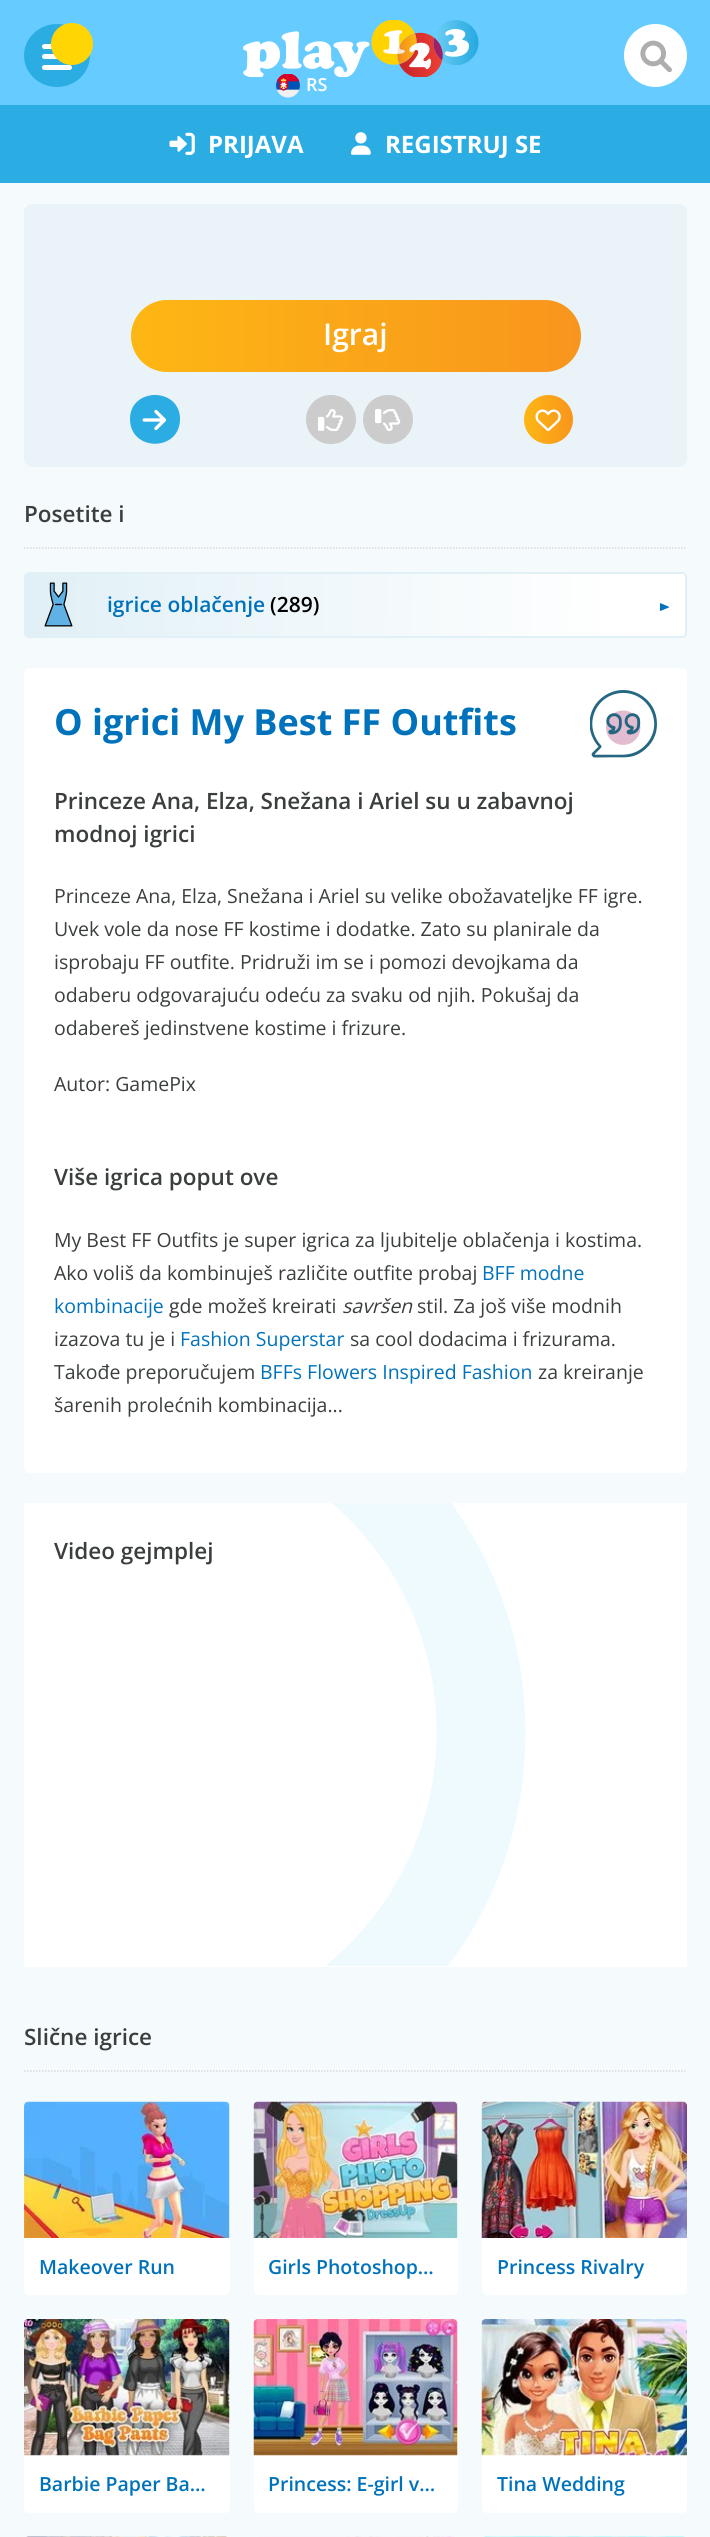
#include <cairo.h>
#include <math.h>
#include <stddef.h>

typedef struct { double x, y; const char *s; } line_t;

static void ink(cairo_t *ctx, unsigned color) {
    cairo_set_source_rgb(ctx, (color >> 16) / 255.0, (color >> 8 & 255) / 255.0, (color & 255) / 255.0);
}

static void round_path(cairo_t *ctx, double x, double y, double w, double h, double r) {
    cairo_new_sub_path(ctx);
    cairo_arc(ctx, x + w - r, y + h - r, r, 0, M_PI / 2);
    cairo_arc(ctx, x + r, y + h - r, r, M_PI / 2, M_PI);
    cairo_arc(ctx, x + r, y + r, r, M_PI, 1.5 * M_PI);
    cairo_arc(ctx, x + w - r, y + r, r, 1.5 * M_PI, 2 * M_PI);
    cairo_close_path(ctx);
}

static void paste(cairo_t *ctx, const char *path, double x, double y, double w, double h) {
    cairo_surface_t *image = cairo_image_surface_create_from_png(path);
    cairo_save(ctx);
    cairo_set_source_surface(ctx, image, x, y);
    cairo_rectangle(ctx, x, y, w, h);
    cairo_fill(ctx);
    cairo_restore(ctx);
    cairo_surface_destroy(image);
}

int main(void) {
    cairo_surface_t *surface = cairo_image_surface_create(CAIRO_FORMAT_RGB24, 710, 2537);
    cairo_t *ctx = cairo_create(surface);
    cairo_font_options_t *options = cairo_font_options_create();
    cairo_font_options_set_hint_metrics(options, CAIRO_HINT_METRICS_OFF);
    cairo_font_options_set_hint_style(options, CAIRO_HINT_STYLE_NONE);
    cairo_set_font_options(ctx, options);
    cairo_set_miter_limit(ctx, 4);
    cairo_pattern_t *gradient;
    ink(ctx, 0xF5FAFC);
    cairo_paint(ctx);
    ink(ctx, 0x66CCFF);
    cairo_rectangle(ctx, 0, 0, 710, 105);
    cairo_fill(ctx);
    ink(ctx, 0x2BACE2);
    cairo_new_path(ctx);
    cairo_move_to(ctx, 57, 24);
    cairo_curve_to(ctx, 75, 24, 90, 38, 90, 55.5);
    cairo_curve_to(ctx, 90, 73, 75, 87, 57, 87);
    cairo_curve_to(ctx, 39, 87, 24, 73, 24, 55.5);
    cairo_curve_to(ctx, 24, 38, 39, 24, 57, 24);
    cairo_close_path(ctx);
    cairo_fill(ctx);
    ink(ctx, 0xFFFFFF);
    round_path(ctx, 42, 44, 30, 5, 2.5);
    cairo_fill(ctx);
    round_path(ctx, 42, 54, 30, 5, 2.5);
    cairo_fill(ctx);
    ink(ctx, 0xFFD503);
    cairo_arc(ctx, 72, 44, 21, 0, 2 * M_PI);
    cairo_fill(ctx);
    ink(ctx, 0xFFFFFF);
    round_path(ctx, 42, 65, 30, 5, 2.5);
    cairo_fill(ctx);
    paste(ctx, "media/1.png", 243, 20, 236, 57);
    paste(ctx, "media/2.png", 276, 74, 24, 24);
    cairo_select_font_face(ctx, "Open Sans SemiBold", CAIRO_FONT_SLANT_NORMAL, CAIRO_FONT_WEIGHT_NORMAL);
    cairo_set_font_size(ctx, 18);
    cairo_move_to(ctx, 306, 91);
    cairo_show_text(ctx, "RS");
    cairo_new_path(ctx);
    cairo_arc(ctx, 655.5, 55.5, 31.5, 0, 2 * M_PI);
    cairo_fill(ctx);
    paste(ctx, "media/3.png", 640, 40, 32, 33);
    ink(ctx, 0x2BACE2);
    cairo_rectangle(ctx, 0, 105, 710, 78);
    cairo_fill(ctx);
    paste(ctx, "media/4.png", 169, 132, 26, 23);
    cairo_select_font_face(ctx, "Open Sans", CAIRO_FONT_SLANT_NORMAL, CAIRO_FONT_WEIGHT_BOLD);
    cairo_set_font_size(ctx, 24);
    ink(ctx, 0xFFFFFF);
    cairo_move_to(ctx, 208, 153);
    cairo_show_text(ctx, "PRIJAVA");
    paste(ctx, "media/5.png", 351, 132, 20, 23);
    cairo_move_to(ctx, 385, 153);
    cairo_show_text(ctx, "REGISTRUJ SE");
    ink(ctx, 0xEAF4F8);
    round_path(ctx, 24, 204, 663, 263, 8);
    cairo_fill(ctx);
    gradient = cairo_pattern_create_linear(131, 336, 581, 336);
    cairo_pattern_add_color_stop_rgba(gradient, 0, 0.992, 0.718, 0.078, 1);
    cairo_pattern_add_color_stop_rgba(gradient, 1, 0.973, 0.584, 0.114, 1);
    cairo_set_source(ctx, gradient);
    cairo_pattern_destroy(gradient);
    round_path(ctx, 131, 300, 450, 72, 36);
    cairo_fill(ctx);
    cairo_select_font_face(ctx, "Open Sans SemiBold", CAIRO_FONT_SLANT_NORMAL, CAIRO_FONT_WEIGHT_NORMAL);
    cairo_set_font_size(ctx, 30);
    ink(ctx, 0xFFFFFF);
    cairo_move_to(ctx, 323, 345);
    cairo_show_text(ctx, "Igraj");
    ink(ctx, 0x2BACE2);
    cairo_new_path(ctx);
    cairo_move_to(ctx, 180, 419);
    cairo_curve_to(ctx, 180, 452, 130, 452, 130, 419);
    cairo_curve_to(ctx, 130, 387, 180, 387, 180, 419);
    cairo_close_path(ctx);
    cairo_fill(ctx);
    paste(ctx, "media/6.png", 142, 409, 25, 22);
    ink(ctx, 0xCDCCCC);
    round_path(ctx, 306, 395, 50, 49, 24.5);
    cairo_fill(ctx);
    paste(ctx, "media/7.png", 318, 409, 26, 22);
    round_path(ctx, 363, 395, 50, 49, 24.5);
    cairo_fill(ctx);
    paste(ctx, "media/8.png", 375, 409, 26, 22);
    gradient = cairo_pattern_create_linear(524, 419, 573, 419);
    cairo_pattern_add_color_stop_rgba(gradient, 0, 0.992, 0.718, 0.078, 1);
    cairo_pattern_add_color_stop_rgba(gradient, 1, 0.973, 0.584, 0.114, 1);
    cairo_set_source(ctx, gradient);
    cairo_pattern_destroy(gradient);
    cairo_arc(ctx, 548.5, 419.5, 24.5, 0, 2 * M_PI);
    cairo_fill(ctx);
    paste(ctx, "media/9.png", 535, 409, 26, 22);
    cairo_new_path(ctx);
    cairo_move_to(ctx, 24, 548);
    cairo_line_to(ctx, 687, 548);
    ink(ctx, 0xD9D9D9);
    cairo_set_line_width(ctx, 1.5);
    cairo_set_dash(ctx, (double[]){1.5, 1.5}, 2, 0);
    cairo_stroke(ctx);
    cairo_set_font_size(ctx, 22.5);
    ink(ctx, 0x3B3E3E);
    cairo_move_to(ctx, 24, 522);
    cairo_show_text(ctx, "Posetite i");
    gradient = cairo_pattern_create_linear(25, 599, 686, 610);
    cairo_pattern_add_color_stop_rgba(gradient, 0, 0.882, 0.941, 0.965, 1);
    cairo_pattern_add_color_stop_rgba(gradient, 0.9, 1, 1, 1, 1);
    cairo_set_source(ctx, gradient);
    cairo_pattern_destroy(gradient);
    cairo_rectangle(ctx, 26, 573, 660, 63);
    cairo_fill(ctx);
    cairo_save(ctx);
    round_path(ctx, 24, 572, 663, 66, 5);
    cairo_clip(ctx);
    gradient = cairo_pattern_create_linear(-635, 662, 26, 673);
    cairo_pattern_add_color_stop_rgba(gradient, 0, 0.882, 0.941, 0.965, 1);
    cairo_pattern_add_color_stop_rgba(gradient, 0.9, 1, 1, 1, 1);
    cairo_set_source(ctx, gradient);
    cairo_pattern_destroy(gradient);
    cairo_rectangle(ctx, 24, 636, 2, 1);
    cairo_fill(ctx);
    cairo_restore(ctx);
    round_path(ctx, 25, 573, 661, 64, 4);
    ink(ctx, 0xE1F0F6);
    cairo_set_line_width(ctx, 2);
    cairo_set_dash(ctx, NULL, 0, 0);
    cairo_stroke(ctx);
    paste(ctx, "media/10.png", 44, 582, 29, 45);
    cairo_set_font_size(ctx, 21);
    ink(ctx, 0x0072BC);
    cairo_move_to(ctx, 107, 612);
    cairo_show_text(ctx, "igrice oblačenje");
    ink(ctx, 0x000000);
    cairo_move_to(ctx, 270, 612);
    cairo_show_text(ctx, "(289)");
    paste(ctx, "media/11.png", 660, 603, 10, 8);
    ink(ctx, 0xFFFFFF);
    round_path(ctx, 24, 668, 663, 805, 6);
    cairo_fill(ctx);
    paste(ctx, "media/12.png", 590, 690, 67, 68);
    cairo_select_font_face(ctx, "Open Sans", CAIRO_FONT_SLANT_NORMAL, CAIRO_FONT_WEIGHT_BOLD);
    cairo_set_font_size(ctx, 36);
    ink(ctx, 0x0072BC);
    cairo_move_to(ctx, 54, 735);
    cairo_show_text(ctx, "O igrici My Best FF Outfits");
    cairo_select_font_face(ctx, "Open Sans SemiBold", CAIRO_FONT_SLANT_NORMAL, CAIRO_FONT_WEIGHT_NORMAL);
    cairo_set_font_size(ctx, 22.5);
    ink(ctx, 0x3B3E3E);
    cairo_move_to(ctx, 54, 809);
    cairo_show_text(ctx, "Princeze Ana, Elza, Snežana i Ariel su u zabavnoj");
    cairo_move_to(ctx, 54, 842);
    cairo_show_text(ctx, "modnoj igrici");
    cairo_select_font_face(ctx, "Open Sans", CAIRO_FONT_SLANT_NORMAL, CAIRO_FONT_WEIGHT_NORMAL);
    cairo_set_font_size(ctx, 19.5);
    {
        static const line_t items[] = {
            {54, 903, "Princeze Ana, Elza, Snežana i Ariel su velike obožavateljke FF igre."},
            {54, 936, "Uvek vole da nose FF kostime i dodatke. Zato su planirale da"},
            {54, 969, "isprobaju FF outfite. Pridruži im se i pomozi devojkama da"},
            {54, 1002, "odaberu odgovarajuću odeću za svaku od njih. Pokušaj da"},
            {54, 1035, "odabereš jedinstvene kostime i frizure."},
            {54, 1091, "Autor: GamePix"},
        };
        for (size_t i = 0; i < sizeof items / sizeof *items; i++) {
            cairo_move_to(ctx, items[i].x, items[i].y);
            cairo_show_text(ctx, items[i].s);
        }
    }
    cairo_select_font_face(ctx, "Open Sans SemiBold", CAIRO_FONT_SLANT_NORMAL, CAIRO_FONT_WEIGHT_NORMAL);
    cairo_set_font_size(ctx, 22.5);
    cairo_move_to(ctx, 54, 1185);
    cairo_show_text(ctx, "Više igrica poput ove");
    cairo_select_font_face(ctx, "Open Sans", CAIRO_FONT_SLANT_NORMAL, CAIRO_FONT_WEIGHT_NORMAL);
    cairo_set_font_size(ctx, 19.5);
    cairo_move_to(ctx, 54, 1247);
    cairo_show_text(ctx, "My Best FF Outfits je super igrica za ljubitelje oblačenja i kostima.");
    cairo_move_to(ctx, 54, 1280);
    cairo_show_text(ctx, "Ako voliš da kombinuješ različite outfite probaj");
    ink(ctx, 0x0072BC);
    cairo_move_to(ctx, 482, 1280);
    cairo_show_text(ctx, "BFF modne");
    cairo_move_to(ctx, 54, 1313);
    cairo_show_text(ctx, "kombinacije");
    ink(ctx, 0x3B3E3E);
    cairo_move_to(ctx, 169, 1313);
    cairo_show_text(ctx, "gde možeš kreirati");
    cairo_select_font_face(ctx, "Open Sans", CAIRO_FONT_SLANT_ITALIC, CAIRO_FONT_WEIGHT_NORMAL);
    cairo_move_to(ctx, 342, 1313);
    cairo_show_text(ctx, "savršen");
    cairo_select_font_face(ctx, "Open Sans", CAIRO_FONT_SLANT_NORMAL, CAIRO_FONT_WEIGHT_NORMAL);
    cairo_move_to(ctx, 417, 1313);
    cairo_show_text(ctx, "stil. Za još više modnih");
    cairo_move_to(ctx, 54, 1346);
    cairo_show_text(ctx, "izazova tu je i");
    ink(ctx, 0x0072BC);
    cairo_move_to(ctx, 180, 1346);
    cairo_show_text(ctx, "Fashion Superstar");
    ink(ctx, 0x3B3E3E);
    cairo_move_to(ctx, 350, 1346);
    cairo_show_text(ctx, "sa cool dodacima i frizurama.");
    cairo_move_to(ctx, 54, 1379);
    cairo_show_text(ctx, "Takođe preporučujem");
    ink(ctx, 0x0072BC);
    cairo_move_to(ctx, 260, 1379);
    cairo_show_text(ctx, "BFFs Flowers Inspired Fashion");
    ink(ctx, 0x3B3E3E);
    cairo_move_to(ctx, 538, 1379);
    cairo_show_text(ctx, "za kreiranje");
    cairo_move_to(ctx, 54, 1412);
    cairo_show_text(ctx, "šarenih prolećnih kombinacija...");
    ink(ctx, 0xFFFFFF);
    cairo_rectangle(ctx, 24, 1503, 663, 464);
    cairo_fill(ctx);
    paste(ctx, "media/13.png", 326, 1503, 200, 463);
    cairo_select_font_face(ctx, "Open Sans SemiBold", CAIRO_FONT_SLANT_NORMAL, CAIRO_FONT_WEIGHT_NORMAL);
    cairo_set_font_size(ctx, 22.5);
    ink(ctx, 0x3B3E3E);
    cairo_move_to(ctx, 54, 1559);
    cairo_show_text(ctx, "Video gejmplej");
    cairo_new_path(ctx);
    cairo_move_to(ctx, 24, 2071);
    cairo_line_to(ctx, 687, 2071);
    ink(ctx, 0xD9D9D9);
    cairo_set_line_width(ctx, 1.5);
    cairo_set_dash(ctx, (double[]){1.5, 1.5}, 2, 0);
    cairo_stroke(ctx);
    ink(ctx, 0x3B3E3E);
    cairo_move_to(ctx, 24, 2045);
    cairo_show_text(ctx, "Slične igrice");
    ink(ctx, 0xFFFFFF);
    round_path(ctx, 24, 2102, 206, 193, 5);
    cairo_fill(ctx);
    paste(ctx, "media/14.png", 24, 2101, 206, 137);
    cairo_set_font_size(ctx, 19.5);
    ink(ctx, 0x0072BC);
    cairo_move_to(ctx, 39, 2274);
    cairo_show_text(ctx, "Makeover Run");
    ink(ctx, 0xFFFFFF);
    round_path(ctx, 254, 2102, 204, 193, 5);
    cairo_fill(ctx);
    paste(ctx, "media/15.png", 253, 2101, 205, 137);
    ink(ctx, 0x0072BC);
    cairo_move_to(ctx, 268, 2274);
    cairo_show_text(ctx, "Girls Photoshop…");
    ink(ctx, 0xFFFFFF);
    round_path(ctx, 482, 2102, 205, 193, 5);
    cairo_fill(ctx);
    paste(ctx, "media/16.png", 481, 2101, 206, 137);
    ink(ctx, 0x0072BC);
    cairo_move_to(ctx, 497, 2274);
    cairo_show_text(ctx, "Princess Rivalry");
    ink(ctx, 0xFFFFFF);
    round_path(ctx, 24, 2319, 206, 194, 5);
    cairo_fill(ctx);
    paste(ctx, "media/17.png", 24, 2319, 206, 137);
    ink(ctx, 0x0072BC);
    cairo_move_to(ctx, 39, 2491);
    cairo_show_text(ctx, "Barbie Paper Ba…");
    ink(ctx, 0xFFFFFF);
    round_path(ctx, 254, 2319, 204, 194, 5);
    cairo_fill(ctx);
    paste(ctx, "media/18.png", 253, 2319, 205, 137);
    ink(ctx, 0x0072BC);
    cairo_move_to(ctx, 268, 2491);
    cairo_show_text(ctx, "Princess: E-girl v…");
    ink(ctx, 0xFFFFFF);
    round_path(ctx, 482, 2319, 205, 194, 5);
    cairo_fill(ctx);
    paste(ctx, "media/19.png", 481, 2319, 206, 137);
    ink(ctx, 0x0072BC);
    cairo_move_to(ctx, 497, 2491);
    cairo_show_text(ctx, "Tina Wedding");
    paste(ctx, "media/20.png", 26, 2536, 201, 1);
    paste(ctx, "media/21.png", 258, 2536, 196, 1);
    paste(ctx, "media/22.png", 484, 2536, 201, 1);
    cairo_surface_write_to_png(surface, "image.png");
    cairo_font_options_destroy(options);
    cairo_destroy(ctx);
    cairo_surface_destroy(surface);
    return 0;
}
